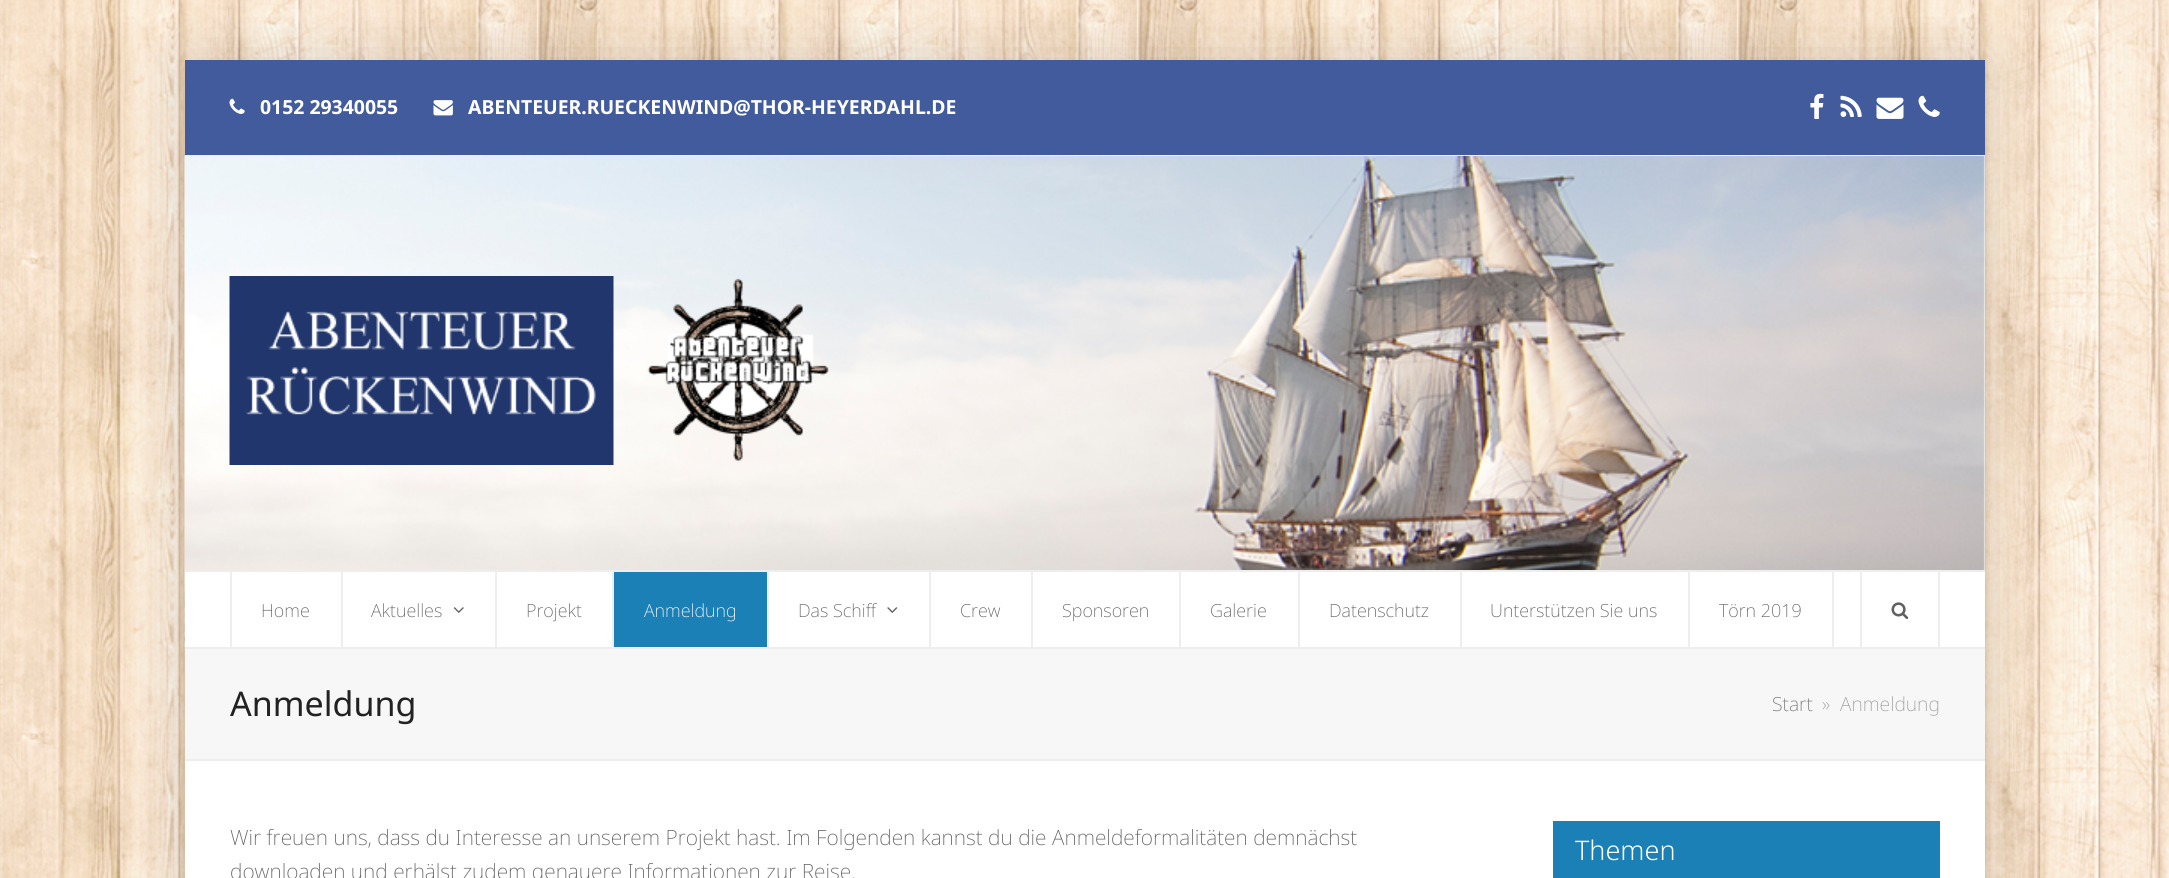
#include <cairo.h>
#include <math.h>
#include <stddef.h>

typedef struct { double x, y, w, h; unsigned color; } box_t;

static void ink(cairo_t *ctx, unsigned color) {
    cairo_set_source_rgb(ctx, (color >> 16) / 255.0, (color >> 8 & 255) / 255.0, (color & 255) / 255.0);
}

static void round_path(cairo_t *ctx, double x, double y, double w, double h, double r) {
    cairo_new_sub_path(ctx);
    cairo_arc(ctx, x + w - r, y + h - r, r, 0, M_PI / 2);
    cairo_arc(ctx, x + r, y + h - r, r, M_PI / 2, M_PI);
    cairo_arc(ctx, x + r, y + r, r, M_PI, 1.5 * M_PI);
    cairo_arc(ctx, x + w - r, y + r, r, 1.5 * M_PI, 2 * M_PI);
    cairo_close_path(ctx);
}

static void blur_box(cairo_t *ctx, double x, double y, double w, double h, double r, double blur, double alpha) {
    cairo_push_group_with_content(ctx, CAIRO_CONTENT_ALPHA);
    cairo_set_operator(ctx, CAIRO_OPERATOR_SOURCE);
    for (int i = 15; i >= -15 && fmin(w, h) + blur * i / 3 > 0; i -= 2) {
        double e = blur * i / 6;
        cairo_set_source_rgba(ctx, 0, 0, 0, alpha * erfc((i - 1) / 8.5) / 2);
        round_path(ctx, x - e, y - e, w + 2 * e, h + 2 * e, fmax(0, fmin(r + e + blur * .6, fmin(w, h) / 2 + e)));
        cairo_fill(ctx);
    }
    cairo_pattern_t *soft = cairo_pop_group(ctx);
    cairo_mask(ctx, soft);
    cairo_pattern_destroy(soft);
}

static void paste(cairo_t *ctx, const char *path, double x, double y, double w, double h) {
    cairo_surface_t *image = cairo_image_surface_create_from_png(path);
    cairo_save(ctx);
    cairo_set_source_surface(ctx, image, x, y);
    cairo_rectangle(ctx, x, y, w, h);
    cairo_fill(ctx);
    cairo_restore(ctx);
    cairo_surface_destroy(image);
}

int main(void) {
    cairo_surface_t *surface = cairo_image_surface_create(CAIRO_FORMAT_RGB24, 2169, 878);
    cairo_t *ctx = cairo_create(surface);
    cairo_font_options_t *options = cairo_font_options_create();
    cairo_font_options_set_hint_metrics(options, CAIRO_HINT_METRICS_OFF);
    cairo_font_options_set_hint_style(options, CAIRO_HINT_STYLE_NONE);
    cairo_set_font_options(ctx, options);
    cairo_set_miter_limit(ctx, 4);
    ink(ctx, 0xFFFFFF);
    cairo_paint(ctx);
    paste(ctx, "media/1.png", 0, 0, 2169, 878);
    ink(ctx, 0x000000);
    blur_box(ctx, 185, 62, 1800, 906, 0, 30, 0.15);
    {
        static const box_t items[] = {
            {185, 761, 1800, 117, 0xFFFFFF},
            {185, 60, 1800, 95, 0x425B9C},
            {185, 155, 1800, 1, 0xEEEEEE},
        };
        for (size_t i = 0; i < sizeof items / sizeof *items; i++) {
            ink(ctx, items[i].color);
            cairo_rectangle(ctx, items[i].x, items[i].y, items[i].w, items[i].h);
            cairo_fill(ctx);
        }
    }
    paste(ctx, "media/2.png", 229, 98, 16, 16);
    cairo_select_font_face(ctx, "Noto Sans", CAIRO_FONT_SLANT_NORMAL, CAIRO_FONT_WEIGHT_BOLD);
    cairo_set_font_size(ctx, 19.4);
    ink(ctx, 0xFFFFFF);
    cairo_move_to(ctx, 260, 114);
    cairo_show_text(ctx, "0152 29340055");
    paste(ctx, "media/3.png", 433, 100, 20, 16);
    cairo_move_to(ctx, 468, 114);
    cairo_show_text(ctx, "ABENTEUER.RUECKENWIND@THOR-HEYERDAHL.DE");
    paste(ctx, "media/4.png", 1810, 93, 14, 26);
    paste(ctx, "media/5.png", 1840, 95, 22, 22);
    paste(ctx, "media/6.png", 1876, 97, 28, 22);
    paste(ctx, "media/7.png", 1918, 95, 22, 22);
    cairo_rectangle(ctx, 1984, 156, 1, 414);
    cairo_fill(ctx);
    paste(ctx, "media/8.png", 184, 156, 1801, 491);
    paste(ctx, "media/9.png", 229, 276, 600, 189);
    {
        static const box_t items[] = {
            {185, 572, 1800, 75, 0xFFFFFF},
            {185, 570, 1800, 2, 0xEEEEEE},
            {1938, 572, 2, 75, 0xEEEEEE},
            {230, 572, 2, 75, 0xEEEEEE},
            {341, 572, 2, 75, 0xEEEEEE},
        };
        for (size_t i = 0; i < sizeof items / sizeof *items; i++) {
            ink(ctx, items[i].color);
            cairo_rectangle(ctx, items[i].x, items[i].y, items[i].w, items[i].h);
            cairo_fill(ctx);
        }
    }
    cairo_select_font_face(ctx, "Noto Sans ExtraLight", CAIRO_FONT_SLANT_NORMAL, CAIRO_FONT_WEIGHT_NORMAL);
    cairo_set_font_size(ctx, 18);
    ink(ctx, 0x616161);
    cairo_move_to(ctx, 261, 617);
    cairo_show_text(ctx, "Home");
    ink(ctx, 0xEEEEEE);
    cairo_rectangle(ctx, 495, 572, 2, 75);
    cairo_fill(ctx);
    ink(ctx, 0x616161);
    cairo_move_to(ctx, 371, 617);
    cairo_show_text(ctx, "Aktuelles");
    paste(ctx, "media/10.png", 453, 607, 11, 6);
    ink(ctx, 0xEEEEEE);
    cairo_rectangle(ctx, 612, 572, 2, 75);
    cairo_fill(ctx);
    ink(ctx, 0x616161);
    cairo_move_to(ctx, 526, 617);
    cairo_show_text(ctx, "Projekt");
    ink(ctx, 0xEEEEEE);
    cairo_rectangle(ctx, 767, 572, 2, 75);
    cairo_fill(ctx);
    ink(ctx, 0x1A80B6);
    cairo_rectangle(ctx, 614, 572, 153, 75);
    cairo_fill(ctx);
    ink(ctx, 0xFFFFFF);
    cairo_move_to(ctx, 644, 617);
    cairo_show_text(ctx, "Anmeldung");
    ink(ctx, 0xEEEEEE);
    cairo_rectangle(ctx, 929, 572, 2, 75);
    cairo_fill(ctx);
    ink(ctx, 0x616161);
    cairo_move_to(ctx, 798, 617);
    cairo_show_text(ctx, "Das Schiff");
    paste(ctx, "media/11.png", 887, 607, 11, 6);
    ink(ctx, 0xEEEEEE);
    cairo_rectangle(ctx, 1031, 572, 2, 75);
    cairo_fill(ctx);
    ink(ctx, 0x616161);
    cairo_move_to(ctx, 960, 617);
    cairo_show_text(ctx, "Crew");
    ink(ctx, 0xEEEEEE);
    cairo_rectangle(ctx, 1179, 572, 2, 75);
    cairo_fill(ctx);
    ink(ctx, 0x616161);
    cairo_move_to(ctx, 1062, 617);
    cairo_show_text(ctx, "Sponsoren");
    ink(ctx, 0xEEEEEE);
    cairo_rectangle(ctx, 1298, 572, 2, 75);
    cairo_fill(ctx);
    ink(ctx, 0x616161);
    cairo_move_to(ctx, 1210, 617);
    cairo_show_text(ctx, "Galerie");
    ink(ctx, 0xEEEEEE);
    cairo_rectangle(ctx, 1460, 572, 2, 75);
    cairo_fill(ctx);
    ink(ctx, 0x616161);
    cairo_move_to(ctx, 1329, 617);
    cairo_show_text(ctx, "Datenschutz");
    ink(ctx, 0xEEEEEE);
    cairo_rectangle(ctx, 1688, 572, 2, 75);
    cairo_fill(ctx);
    ink(ctx, 0x616161);
    cairo_move_to(ctx, 1490, 617);
    cairo_show_text(ctx, "Unterstützen Sie uns");
    ink(ctx, 0xEEEEEE);
    cairo_rectangle(ctx, 1832, 572, 2, 75);
    cairo_fill(ctx);
    ink(ctx, 0x616161);
    cairo_move_to(ctx, 1719, 617);
    cairo_show_text(ctx, "Törn 2019");
    ink(ctx, 0xEEEEEE);
    cairo_rectangle(ctx, 1860, 572, 2, 75);
    cairo_fill(ctx);
    paste(ctx, "media/12.png", 1891, 602, 18, 17);
    {
        static const box_t items[] = {
            {185, 649, 1800, 110, 0xF7F7F7},
            {185, 647, 1800, 2, 0xEEEEEE},
            {185, 759, 1800, 2, 0xEEEEEE},
        };
        for (size_t i = 0; i < sizeof items / sizeof *items; i++) {
            ink(ctx, items[i].color);
            cairo_rectangle(ctx, items[i].x, items[i].y, items[i].w, items[i].h);
            cairo_fill(ctx);
        }
    }
    cairo_select_font_face(ctx, "Noto Sans", CAIRO_FONT_SLANT_NORMAL, CAIRO_FONT_WEIGHT_NORMAL);
    cairo_set_font_size(ctx, 34);
    ink(ctx, 0x222222);
    cairo_move_to(ctx, 230, 716);
    cairo_show_text(ctx, "Anmeldung");
    cairo_select_font_face(ctx, "Noto Sans ExtraLight", CAIRO_FONT_SLANT_NORMAL, CAIRO_FONT_WEIGHT_NORMAL);
    cairo_set_font_size(ctx, 19.4);
    ink(ctx, 0x757575);
    cairo_move_to(ctx, 1772, 711);
    cairo_show_text(ctx, "Start");
    ink(ctx, 0x9E9E9E);
    cairo_move_to(ctx, 1822, 711);
    cairo_show_text(ctx, "»");
    cairo_move_to(ctx, 1840, 711);
    cairo_show_text(ctx, "Anmeldung");
    cairo_set_font_size(ctx, 21);
    ink(ctx, 0x616161);
    cairo_move_to(ctx, 230, 845);
    cairo_show_text(ctx, "Wir freuen uns, dass du Interesse an unserem Projekt hast. Im Folgenden kannst du die Anmeldeformalitäten demnächst");
    cairo_move_to(ctx, 230, 879);
    cairo_show_text(ctx, "downloaden und erhälst zudem genauere Informationen zur Reise.");
    ink(ctx, 0x1A80B6);
    cairo_rectangle(ctx, 1553, 821, 387, 57);
    cairo_fill(ctx);
    cairo_select_font_face(ctx, "Noto Sans Light", CAIRO_FONT_SLANT_NORMAL, CAIRO_FONT_WEIGHT_NORMAL);
    cairo_set_font_size(ctx, 27);
    ink(ctx, 0xFFFFFF);
    cairo_move_to(ctx, 1575, 860);
    cairo_show_text(ctx, "Themen");
    cairo_surface_write_to_png(surface, "image.png");
    cairo_font_options_destroy(options);
    cairo_destroy(ctx);
    cairo_surface_destroy(surface);
    return 0;
}
